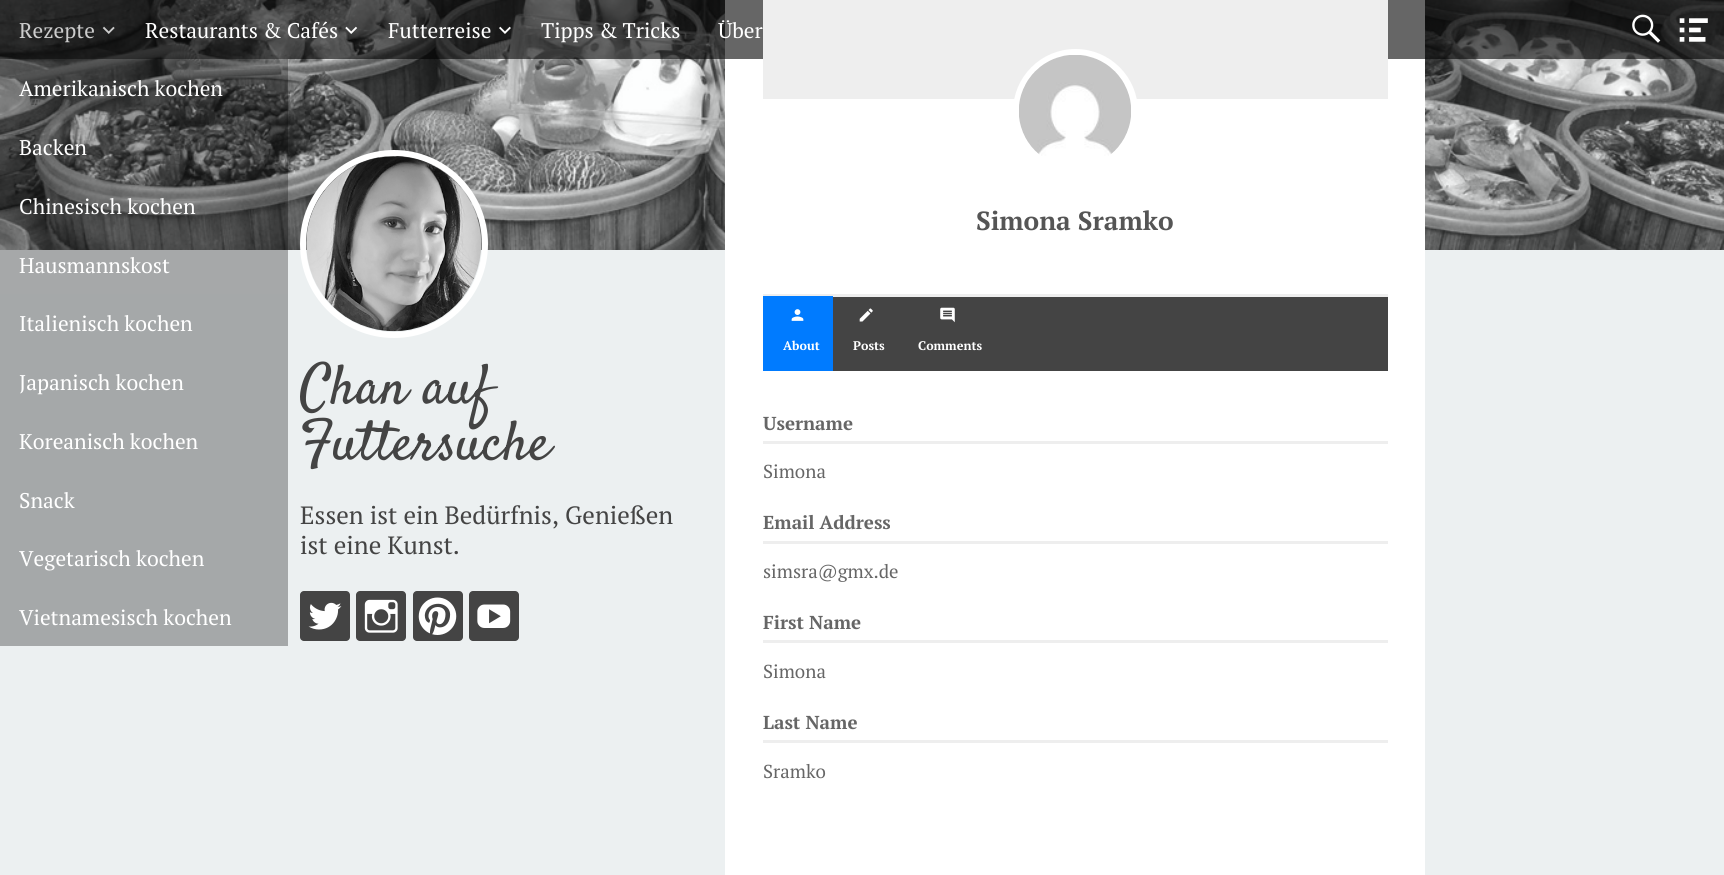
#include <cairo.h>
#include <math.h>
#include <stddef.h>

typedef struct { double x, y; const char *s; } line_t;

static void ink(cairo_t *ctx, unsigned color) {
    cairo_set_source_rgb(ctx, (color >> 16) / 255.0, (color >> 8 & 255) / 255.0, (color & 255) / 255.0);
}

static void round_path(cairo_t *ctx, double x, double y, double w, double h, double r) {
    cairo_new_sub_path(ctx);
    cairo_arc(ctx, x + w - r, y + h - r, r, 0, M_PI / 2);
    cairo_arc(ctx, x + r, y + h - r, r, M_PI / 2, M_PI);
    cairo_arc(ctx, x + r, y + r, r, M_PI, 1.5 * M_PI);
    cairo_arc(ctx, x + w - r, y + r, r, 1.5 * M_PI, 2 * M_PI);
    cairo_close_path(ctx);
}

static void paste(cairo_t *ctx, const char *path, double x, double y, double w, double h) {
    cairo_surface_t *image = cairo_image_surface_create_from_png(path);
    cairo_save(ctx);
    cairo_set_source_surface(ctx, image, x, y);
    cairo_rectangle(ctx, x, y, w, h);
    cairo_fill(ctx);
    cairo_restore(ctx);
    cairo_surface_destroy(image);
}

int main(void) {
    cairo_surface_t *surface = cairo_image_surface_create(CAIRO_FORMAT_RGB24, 1724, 875);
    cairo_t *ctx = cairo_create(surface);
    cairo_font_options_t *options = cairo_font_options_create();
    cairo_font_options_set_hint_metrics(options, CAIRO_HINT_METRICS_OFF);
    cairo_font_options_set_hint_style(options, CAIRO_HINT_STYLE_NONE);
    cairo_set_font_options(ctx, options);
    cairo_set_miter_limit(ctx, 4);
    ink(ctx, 0xECF0F1);
    cairo_paint(ctx);
    paste(ctx, "media/1.png", 0, 0, 1724, 250);
    ink(ctx, 0xFFFFFF);
    cairo_rectangle(ctx, 725, 0, 700, 875);
    cairo_fill(ctx);
    cairo_set_source_rgba(ctx, 0, 0, 0, 0.6);
    cairo_rectangle(ctx, 0, 0, 1724, 59);
    cairo_fill(ctx);
    cairo_select_font_face(ctx, "PT Serif", CAIRO_FONT_SLANT_NORMAL, CAIRO_FONT_WEIGHT_NORMAL);
    cairo_set_font_size(ctx, 21.25);
    ink(ctx, 0xCCCCCC);
    cairo_move_to(ctx, 19, 38);
    cairo_show_text(ctx, "Rezepte");
    paste(ctx, "media/2.png", 102, 26, 13, 8);
    cairo_set_source_rgba(ctx, 0, 0, 0, 0.3);
    cairo_rectangle(ctx, 0, 59, 288, 59);
    cairo_fill(ctx);
    ink(ctx, 0xFFFFFF);
    cairo_move_to(ctx, 19, 96);
    cairo_show_text(ctx, "Amerikanisch kochen");
    cairo_set_source_rgba(ctx, 0, 0, 0, 0.3);
    cairo_rectangle(ctx, 0, 118, 288, 58);
    cairo_fill(ctx);
    ink(ctx, 0xFFFFFF);
    cairo_move_to(ctx, 19, 155);
    cairo_show_text(ctx, "Backen");
    cairo_set_source_rgba(ctx, 0, 0, 0, 0.3);
    cairo_rectangle(ctx, 0, 176, 288, 59);
    cairo_fill(ctx);
    ink(ctx, 0xFFFFFF);
    cairo_move_to(ctx, 19, 214);
    cairo_show_text(ctx, "Chinesisch kochen");
    cairo_set_source_rgba(ctx, 0, 0, 0, 0.3);
    cairo_rectangle(ctx, 0, 235, 288, 59);
    cairo_fill(ctx);
    ink(ctx, 0xFFFFFF);
    cairo_move_to(ctx, 19, 273);
    cairo_show_text(ctx, "Hausmannskost");
    ink(ctx, 0xA5A8A9);
    cairo_rectangle(ctx, 0, 294, 288, 352);
    cairo_fill(ctx);
    ink(ctx, 0xFFFFFF);
    {
        static const line_t items[] = {
            {19, 331, "Italienisch kochen"},
            {19, 390, "Japanisch kochen"},
            {19, 449, "Koreanisch kochen"},
            {19, 508, "Snack"},
            {19, 566, "Vegetarisch kochen"},
            {19, 625, "Vietnamesisch kochen"},
            {145, 38, "Restaurants & Cafés"},
        };
        for (size_t i = 0; i < sizeof items / sizeof *items; i++) {
            cairo_move_to(ctx, items[i].x, items[i].y);
            cairo_show_text(ctx, items[i].s);
        }
    }
    paste(ctx, "media/3.png", 345, 26, 13, 8);
    cairo_move_to(ctx, 388, 38);
    cairo_show_text(ctx, "Futterreise");
    paste(ctx, "media/4.png", 499, 26, 12, 8);
    cairo_move_to(ctx, 541, 38);
    cairo_show_text(ctx, "Tipps & Tricks");
    cairo_move_to(ctx, 718, 38);
    cairo_show_text(ctx, "Über");
    paste(ctx, "media/5.png", 1632, 14, 29, 29);
    paste(ctx, "media/6.png", 1679, 18, 29, 24);
    cairo_arc(ctx, 394, 244, 91, 0, 2 * M_PI);
    cairo_set_line_width(ctx, 6);
    cairo_stroke(ctx);
    paste(ctx, "media/7.png", 306, 156, 176, 176);
    cairo_select_font_face(ctx, "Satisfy", CAIRO_FONT_SLANT_NORMAL, CAIRO_FONT_WEIGHT_NORMAL);
    cairo_set_font_size(ctx, 56.25);
    ink(ctx, 0x444444);
    cairo_move_to(ctx, 300, 403);
    cairo_show_text(ctx, "Chan auf");
    cairo_move_to(ctx, 300, 459);
    cairo_show_text(ctx, "Futtersuche");
    cairo_select_font_face(ctx, "PT Serif", CAIRO_FONT_SLANT_NORMAL, CAIRO_FONT_WEIGHT_NORMAL);
    cairo_set_font_size(ctx, 25);
    cairo_move_to(ctx, 300, 524);
    cairo_show_text(ctx, "Essen ist ein Bedürfnis, Genießen");
    cairo_move_to(ctx, 300, 554);
    cairo_show_text(ctx, "ist eine Kunst.");
    round_path(ctx, 300, 591, 50, 50, 4);
    cairo_fill(ctx);
    paste(ctx, "media/8.png", 308, 602, 34, 28);
    round_path(ctx, 356, 591, 50, 50, 4);
    cairo_fill(ctx);
    paste(ctx, "media/9.png", 364, 599, 34, 34);
    round_path(ctx, 413, 591, 50, 50, 4);
    cairo_fill(ctx);
    paste(ctx, "media/10.png", 418, 597, 39, 38);
    round_path(ctx, 469, 591, 50, 50, 4);
    cairo_fill(ctx);
    paste(ctx, "media/11.png", 477, 604, 34, 24);
    ink(ctx, 0xEEEEEE);
    cairo_rectangle(ctx, 763, 0, 625, 99);
    cairo_fill(ctx);
    cairo_rectangle(ctx, 763, 294, 625, 3);
    cairo_fill(ctx);
    ink(ctx, 0xFFFFFF);
    cairo_arc(ctx, 1075.5, 111.5, 59.5, 0, 2 * M_PI);
    cairo_fill_preserve(ctx);
    cairo_stroke(ctx);
    paste(ctx, "media/12.png", 1019, 55, 112, 101);
    cairo_select_font_face(ctx, "PT Serif", CAIRO_FONT_SLANT_NORMAL, CAIRO_FONT_WEIGHT_BOLD);
    cairo_set_font_size(ctx, 26.25);
    ink(ctx, 0x555555);
    cairo_move_to(ctx, 976, 230);
    cairo_show_text(ctx, "Simona Sramko");
    ink(ctx, 0x444444);
    cairo_rectangle(ctx, 833, 297, 555, 74);
    cairo_fill(ctx);
    ink(ctx, 0x007BFF);
    cairo_rectangle(ctx, 763, 296, 70, 75);
    cairo_fill(ctx);
    paste(ctx, "media/13.png", 791, 309, 13, 12);
    cairo_set_font_size(ctx, 12.5);
    ink(ctx, 0xFFFFFF);
    cairo_move_to(ctx, 783, 350);
    cairo_show_text(ctx, "About");
    paste(ctx, "media/14.png", 859, 308, 14, 14);
    cairo_move_to(ctx, 853, 350);
    cairo_show_text(ctx, "Posts");
    paste(ctx, "media/15.png", 940, 307, 15, 16);
    cairo_move_to(ctx, 918, 350);
    cairo_show_text(ctx, "Comments");
    ink(ctx, 0xEEEEEE);
    cairo_rectangle(ctx, 763, 441, 625, 3);
    cairo_fill(ctx);
    cairo_set_font_size(ctx, 18.75);
    ink(ctx, 0x666666);
    cairo_move_to(ctx, 763, 430);
    cairo_show_text(ctx, "Username");
    cairo_select_font_face(ctx, "PT Serif", CAIRO_FONT_SLANT_NORMAL, CAIRO_FONT_WEIGHT_NORMAL);
    cairo_move_to(ctx, 763, 478);
    cairo_show_text(ctx, "Simona");
    ink(ctx, 0xEEEEEE);
    cairo_rectangle(ctx, 763, 541, 625, 3);
    cairo_fill(ctx);
    cairo_select_font_face(ctx, "PT Serif", CAIRO_FONT_SLANT_NORMAL, CAIRO_FONT_WEIGHT_BOLD);
    ink(ctx, 0x666666);
    cairo_move_to(ctx, 763, 529);
    cairo_show_text(ctx, "Email Address");
    cairo_select_font_face(ctx, "PT Serif", CAIRO_FONT_SLANT_NORMAL, CAIRO_FONT_WEIGHT_NORMAL);
    cairo_move_to(ctx, 763, 578);
    cairo_show_text(ctx, "simsra@gmx.de");
    ink(ctx, 0xEEEEEE);
    cairo_rectangle(ctx, 763, 640, 625, 3);
    cairo_fill(ctx);
    cairo_select_font_face(ctx, "PT Serif", CAIRO_FONT_SLANT_NORMAL, CAIRO_FONT_WEIGHT_BOLD);
    ink(ctx, 0x666666);
    cairo_move_to(ctx, 763, 629);
    cairo_show_text(ctx, "First Name");
    cairo_select_font_face(ctx, "PT Serif", CAIRO_FONT_SLANT_NORMAL, CAIRO_FONT_WEIGHT_NORMAL);
    cairo_move_to(ctx, 763, 678);
    cairo_show_text(ctx, "Simona");
    ink(ctx, 0xEEEEEE);
    cairo_rectangle(ctx, 763, 740, 625, 3);
    cairo_fill(ctx);
    cairo_select_font_face(ctx, "PT Serif", CAIRO_FONT_SLANT_NORMAL, CAIRO_FONT_WEIGHT_BOLD);
    ink(ctx, 0x666666);
    cairo_move_to(ctx, 763, 729);
    cairo_show_text(ctx, "Last Name");
    cairo_select_font_face(ctx, "PT Serif", CAIRO_FONT_SLANT_NORMAL, CAIRO_FONT_WEIGHT_NORMAL);
    cairo_move_to(ctx, 763, 778);
    cairo_show_text(ctx, "Sramko");
    cairo_surface_write_to_png(surface, "image.png");
    cairo_font_options_destroy(options);
    cairo_destroy(ctx);
    cairo_surface_destroy(surface);
    return 0;
}
